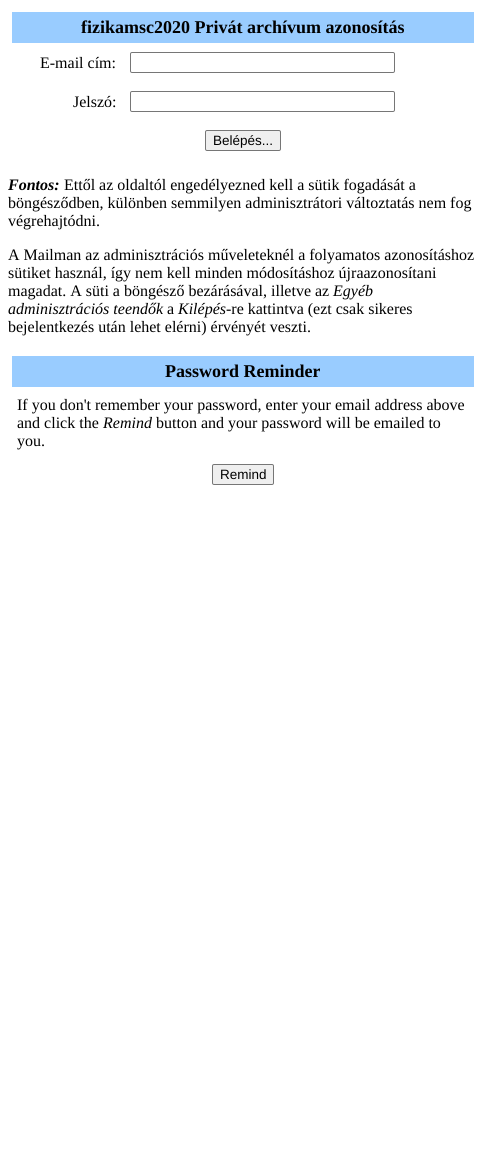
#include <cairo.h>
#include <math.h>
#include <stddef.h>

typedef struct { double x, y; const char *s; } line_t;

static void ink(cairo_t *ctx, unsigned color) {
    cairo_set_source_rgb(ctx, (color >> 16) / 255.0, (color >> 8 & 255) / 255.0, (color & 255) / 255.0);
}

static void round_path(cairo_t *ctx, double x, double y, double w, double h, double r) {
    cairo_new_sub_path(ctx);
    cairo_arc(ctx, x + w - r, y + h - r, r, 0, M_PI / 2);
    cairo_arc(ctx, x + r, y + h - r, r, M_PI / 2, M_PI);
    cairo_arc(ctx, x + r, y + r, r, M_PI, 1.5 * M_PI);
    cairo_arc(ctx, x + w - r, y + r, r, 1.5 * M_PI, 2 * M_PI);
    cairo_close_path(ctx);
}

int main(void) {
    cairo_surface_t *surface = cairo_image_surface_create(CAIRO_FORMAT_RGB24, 486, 1156);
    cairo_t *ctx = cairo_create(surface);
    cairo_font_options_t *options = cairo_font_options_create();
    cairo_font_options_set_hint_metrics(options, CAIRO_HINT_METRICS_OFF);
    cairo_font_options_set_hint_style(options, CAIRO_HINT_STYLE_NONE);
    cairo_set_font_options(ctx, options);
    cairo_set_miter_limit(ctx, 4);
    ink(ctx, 0xFFFFFF);
    cairo_paint(ctx);
    ink(ctx, 0x99CCFF);
    cairo_rectangle(ctx, 12, 12, 462, 31);
    cairo_fill(ctx);
    cairo_select_font_face(ctx, "Liberation Serif", CAIRO_FONT_SLANT_NORMAL, CAIRO_FONT_WEIGHT_BOLD);
    cairo_set_font_size(ctx, 18);
    ink(ctx, 0x000000);
    cairo_move_to(ctx, 81, 33);
    cairo_show_text(ctx, "fizikamsc2020 Privát archívum azonosítás");
    cairo_select_font_face(ctx, "Liberation Serif", CAIRO_FONT_SLANT_NORMAL, CAIRO_FONT_WEIGHT_NORMAL);
    cairo_set_font_size(ctx, 16);
    cairo_move_to(ctx, 40, 68);
    cairo_show_text(ctx, "E-mail cím:");
    round_path(ctx, 130.5, 52.5, 264, 20, 1.5);
    ink(ctx, 0x767676);
    cairo_set_line_width(ctx, 1);
    cairo_stroke(ctx);
    ink(ctx, 0x000000);
    cairo_move_to(ctx, 73, 107);
    cairo_show_text(ctx, "Jelszó:");
    round_path(ctx, 130.5, 91.5, 264, 20, 1.5);
    ink(ctx, 0x767676);
    cairo_stroke(ctx);
    ink(ctx, 0xEFEFEF);
    round_path(ctx, 205.5, 130.5, 75, 20, 1.5);
    cairo_fill_preserve(ctx);
    ink(ctx, 0x767676);
    cairo_stroke(ctx);
    cairo_select_font_face(ctx, "Liberation Sans", CAIRO_FONT_SLANT_NORMAL, CAIRO_FONT_WEIGHT_NORMAL);
    cairo_set_font_size(ctx, 13.5);
    ink(ctx, 0x000000);
    cairo_move_to(ctx, 213, 145);
    cairo_show_text(ctx, "Belépés...");
    cairo_select_font_face(ctx, "Liberation Serif", CAIRO_FONT_SLANT_ITALIC, CAIRO_FONT_WEIGHT_BOLD);
    cairo_set_font_size(ctx, 16);
    cairo_move_to(ctx, 8, 190);
    cairo_show_text(ctx, "Fontos:");
    cairo_select_font_face(ctx, "Liberation Serif", CAIRO_FONT_SLANT_NORMAL, CAIRO_FONT_WEIGHT_NORMAL);
    {
        static const line_t items[] = {
            {64, 190, "Ettől az oldaltól engedélyezned kell a sütik fogadását a"},
            {8, 208, "böngésződben, különben semmilyen adminisztrátori változtatás nem fog"},
            {8, 226, "végrehajtódni."},
            {8, 260, "A Mailman az adminisztrációs műveleteknél a folyamatos azonosításhoz"},
            {8, 278, "sütiket használ, így nem kell minden módosításhoz újraazonosítani"},
            {8, 296, "magadat. A süti a böngésző bezárásával, illetve az"},
        };
        for (size_t i = 0; i < sizeof items / sizeof *items; i++) {
            cairo_move_to(ctx, items[i].x, items[i].y);
            cairo_show_text(ctx, items[i].s);
        }
    }
    cairo_select_font_face(ctx, "Liberation Serif", CAIRO_FONT_SLANT_ITALIC, CAIRO_FONT_WEIGHT_NORMAL);
    cairo_move_to(ctx, 333, 296);
    cairo_show_text(ctx, "Egyéb");
    cairo_move_to(ctx, 8, 314);
    cairo_show_text(ctx, "adminisztrációs teendők");
    cairo_select_font_face(ctx, "Liberation Serif", CAIRO_FONT_SLANT_NORMAL, CAIRO_FONT_WEIGHT_NORMAL);
    cairo_move_to(ctx, 167, 314);
    cairo_show_text(ctx, "a");
    cairo_select_font_face(ctx, "Liberation Serif", CAIRO_FONT_SLANT_ITALIC, CAIRO_FONT_WEIGHT_NORMAL);
    cairo_move_to(ctx, 178, 314);
    cairo_show_text(ctx, "Kilépés");
    cairo_select_font_face(ctx, "Liberation Serif", CAIRO_FONT_SLANT_NORMAL, CAIRO_FONT_WEIGHT_NORMAL);
    cairo_move_to(ctx, 226, 314);
    cairo_show_text(ctx, "-re kattintva (ezt csak sikeres");
    cairo_move_to(ctx, 8, 332);
    cairo_show_text(ctx, "bejelentkezés után lehet elérni) érvényét veszti.");
    ink(ctx, 0x99CCFF);
    cairo_rectangle(ctx, 12, 356, 462, 31);
    cairo_fill(ctx);
    cairo_select_font_face(ctx, "Liberation Serif", CAIRO_FONT_SLANT_NORMAL, CAIRO_FONT_WEIGHT_BOLD);
    cairo_set_font_size(ctx, 18);
    ink(ctx, 0x000000);
    cairo_move_to(ctx, 165, 377);
    cairo_show_text(ctx, "Password Reminder");
    cairo_select_font_face(ctx, "Liberation Serif", CAIRO_FONT_SLANT_NORMAL, CAIRO_FONT_WEIGHT_NORMAL);
    cairo_set_font_size(ctx, 16);
    cairo_move_to(ctx, 17, 410);
    cairo_show_text(ctx, "If you don't remember your password, enter your email address above");
    cairo_move_to(ctx, 17, 428);
    cairo_show_text(ctx, "and click the");
    cairo_select_font_face(ctx, "Liberation Serif", CAIRO_FONT_SLANT_ITALIC, CAIRO_FONT_WEIGHT_NORMAL);
    cairo_move_to(ctx, 103, 428);
    cairo_show_text(ctx, "Remind");
    cairo_select_font_face(ctx, "Liberation Serif", CAIRO_FONT_SLANT_NORMAL, CAIRO_FONT_WEIGHT_NORMAL);
    cairo_move_to(ctx, 156, 428);
    cairo_show_text(ctx, "button and your password will be emailed to");
    cairo_move_to(ctx, 17, 446);
    cairo_show_text(ctx, "you.");
    ink(ctx, 0xEFEFEF);
    round_path(ctx, 212.5, 464.5, 61, 20, 1.5);
    cairo_fill_preserve(ctx);
    ink(ctx, 0x767676);
    cairo_stroke(ctx);
    cairo_select_font_face(ctx, "Liberation Sans", CAIRO_FONT_SLANT_NORMAL, CAIRO_FONT_WEIGHT_NORMAL);
    cairo_set_font_size(ctx, 13.5);
    ink(ctx, 0x000000);
    cairo_move_to(ctx, 220, 479);
    cairo_show_text(ctx, "Remind");
    cairo_surface_write_to_png(surface, "image.png");
    cairo_font_options_destroy(options);
    cairo_destroy(ctx);
    cairo_surface_destroy(surface);
    return 0;
}
